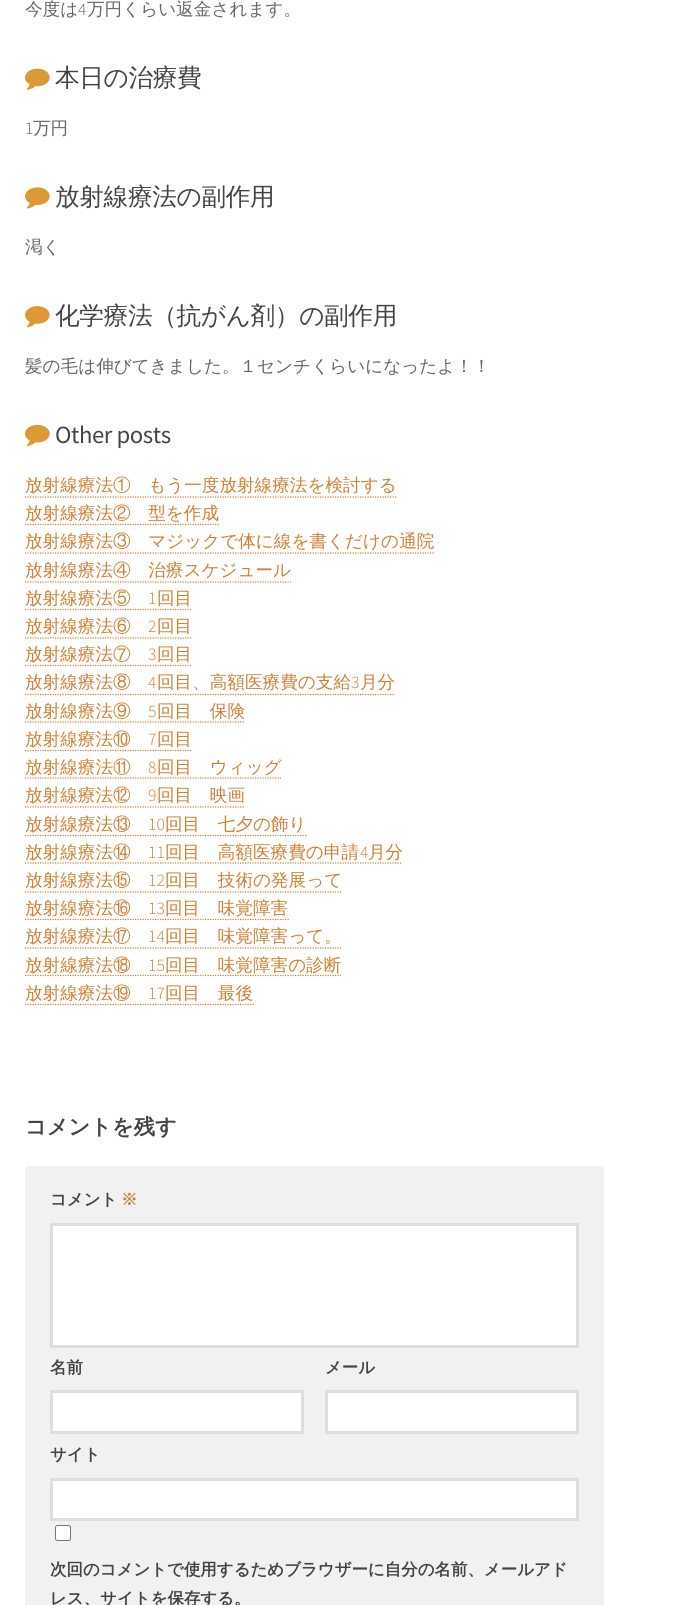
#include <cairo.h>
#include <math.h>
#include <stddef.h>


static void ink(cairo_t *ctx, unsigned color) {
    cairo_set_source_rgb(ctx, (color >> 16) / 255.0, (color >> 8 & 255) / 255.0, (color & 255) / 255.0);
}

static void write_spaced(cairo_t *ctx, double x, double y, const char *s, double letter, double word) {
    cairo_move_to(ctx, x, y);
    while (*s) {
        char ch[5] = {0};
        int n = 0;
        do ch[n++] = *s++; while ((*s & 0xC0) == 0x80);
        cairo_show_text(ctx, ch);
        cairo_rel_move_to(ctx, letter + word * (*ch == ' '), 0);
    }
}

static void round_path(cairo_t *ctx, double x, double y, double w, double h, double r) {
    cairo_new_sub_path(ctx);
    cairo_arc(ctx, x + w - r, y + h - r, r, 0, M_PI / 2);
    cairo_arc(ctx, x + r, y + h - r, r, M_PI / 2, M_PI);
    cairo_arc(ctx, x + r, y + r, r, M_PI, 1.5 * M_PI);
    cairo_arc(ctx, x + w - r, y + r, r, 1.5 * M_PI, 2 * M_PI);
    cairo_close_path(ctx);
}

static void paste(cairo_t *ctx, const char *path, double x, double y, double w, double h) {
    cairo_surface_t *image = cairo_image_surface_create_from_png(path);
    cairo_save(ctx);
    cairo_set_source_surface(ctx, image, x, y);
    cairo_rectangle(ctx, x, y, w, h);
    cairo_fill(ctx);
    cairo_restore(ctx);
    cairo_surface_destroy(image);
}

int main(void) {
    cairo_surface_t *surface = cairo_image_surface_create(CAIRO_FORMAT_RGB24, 691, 1605);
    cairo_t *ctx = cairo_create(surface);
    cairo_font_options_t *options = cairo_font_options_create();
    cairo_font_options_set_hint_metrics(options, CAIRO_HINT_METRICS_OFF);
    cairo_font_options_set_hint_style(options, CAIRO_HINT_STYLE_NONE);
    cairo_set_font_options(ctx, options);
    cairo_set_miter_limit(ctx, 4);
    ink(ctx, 0xFFFFFF);
    cairo_paint(ctx);
    cairo_select_font_face(ctx, "WenQuanYi Zen Hei Medium", CAIRO_FONT_SLANT_NORMAL, CAIRO_FONT_WEIGHT_NORMAL);
    cairo_set_font_size(ctx, 17.6);
    ink(ctx, 0x666666);
    cairo_move_to(ctx, 25, 15);
    cairo_show_text(ctx, "今度は");
    cairo_select_font_face(ctx, "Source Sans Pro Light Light", CAIRO_FONT_SLANT_NORMAL, CAIRO_FONT_WEIGHT_NORMAL);
    cairo_move_to(ctx, 78, 15);
    cairo_show_text(ctx, "4");
    cairo_select_font_face(ctx, "WenQuanYi Zen Hei Medium", CAIRO_FONT_SLANT_NORMAL, CAIRO_FONT_WEIGHT_NORMAL);
    cairo_move_to(ctx, 87, 15);
    cairo_show_text(ctx, "万円くらい返金されます。");
    paste(ctx, "media/1.png", 25, 68, 25, 22);
    cairo_set_font_size(ctx, 24.7);
    ink(ctx, 0x444444);
    write_spaced(ctx, 55, 86, "本日の治療費", -0.4, 0);
    cairo_select_font_face(ctx, "Source Sans Pro Light Light", CAIRO_FONT_SLANT_NORMAL, CAIRO_FONT_WEIGHT_NORMAL);
    cairo_set_font_size(ctx, 17.6);
    ink(ctx, 0x666666);
    cairo_move_to(ctx, 25, 134);
    cairo_show_text(ctx, "1");
    cairo_select_font_face(ctx, "WenQuanYi Zen Hei Medium", CAIRO_FONT_SLANT_NORMAL, CAIRO_FONT_WEIGHT_NORMAL);
    cairo_move_to(ctx, 33, 134);
    cairo_show_text(ctx, "万円");
    paste(ctx, "media/2.png", 25, 187, 25, 22);
    cairo_set_font_size(ctx, 24.7);
    ink(ctx, 0x444444);
    write_spaced(ctx, 55, 205, "放射線療法の副作用", -0.4, 0);
    cairo_set_font_size(ctx, 17.6);
    ink(ctx, 0x666666);
    cairo_move_to(ctx, 25, 253);
    cairo_show_text(ctx, "渇く");
    paste(ctx, "media/3.png", 25, 306, 25, 22);
    cairo_set_font_size(ctx, 24.7);
    ink(ctx, 0x444444);
    write_spaced(ctx, 55, 324, "化学療法（抗がん剤）の副作用", -0.4, 0);
    cairo_set_font_size(ctx, 17.6);
    ink(ctx, 0x666666);
    cairo_move_to(ctx, 25, 372);
    cairo_show_text(ctx, "髪の毛は伸びてきました。１センチくらいになったよ！！");
    paste(ctx, "media/4.png", 25, 424, 25, 22);
    cairo_select_font_face(ctx, "Source Sans Pro", CAIRO_FONT_SLANT_NORMAL, CAIRO_FONT_WEIGHT_NORMAL);
    cairo_set_font_size(ctx, 24.7);
    ink(ctx, 0x444444);
    write_spaced(ctx, 55, 443, "Other posts", -0.4, 0);
    cairo_select_font_face(ctx, "WenQuanYi Zen Hei Medium", CAIRO_FONT_SLANT_NORMAL, CAIRO_FONT_WEIGHT_NORMAL);
    cairo_set_font_size(ctx, 17.6);
    ink(ctx, 0xD08034);
    cairo_move_to(ctx, 25, 491);
    cairo_show_text(ctx, "放射線療法①　もう一度放射線療法を検討する");
    cairo_new_path(ctx);
    cairo_move_to(ctx, 25, 497);
    cairo_line_to(ctx, 397.5, 497);
    cairo_set_line_width(ctx, 1.2);
    cairo_set_dash(ctx, (double[]){1.25, 1.25}, 2, 0);
    cairo_stroke(ctx);
    cairo_move_to(ctx, 25, 519);
    cairo_show_text(ctx, "放射線療法②　型を作成");
    cairo_new_path(ctx);
    cairo_move_to(ctx, 25, 524.5);
    cairo_line_to(ctx, 219, 524.5);
    cairo_stroke(ctx);
    cairo_move_to(ctx, 25, 547);
    cairo_show_text(ctx, "放射線療法③　マジックで体に線を書くだけの通院");
    cairo_new_path(ctx);
    cairo_move_to(ctx, 25, 553);
    cairo_line_to(ctx, 435, 553);
    cairo_stroke(ctx);
    cairo_move_to(ctx, 25, 576);
    cairo_show_text(ctx, "放射線療法④　治療スケジュール");
    cairo_new_path(ctx);
    cairo_move_to(ctx, 25, 582);
    cairo_line_to(ctx, 291, 582);
    cairo_stroke(ctx);
    cairo_move_to(ctx, 25, 604);
    cairo_show_text(ctx, "放射線療法⑤");
    cairo_select_font_face(ctx, "Source Sans Pro Light Light", CAIRO_FONT_SLANT_NORMAL, CAIRO_FONT_WEIGHT_NORMAL);
    cairo_move_to(ctx, 148, 604);
    cairo_show_text(ctx, "1");
    cairo_select_font_face(ctx, "WenQuanYi Zen Hei Medium", CAIRO_FONT_SLANT_NORMAL, CAIRO_FONT_WEIGHT_NORMAL);
    cairo_move_to(ctx, 157, 604);
    cairo_show_text(ctx, "回目");
    cairo_new_path(ctx);
    cairo_move_to(ctx, 25, 609.5);
    cairo_line_to(ctx, 192.5, 609.5);
    cairo_stroke(ctx);
    cairo_move_to(ctx, 25, 632);
    cairo_show_text(ctx, "放射線療法⑥");
    cairo_select_font_face(ctx, "Source Sans Pro Light Light", CAIRO_FONT_SLANT_NORMAL, CAIRO_FONT_WEIGHT_NORMAL);
    cairo_move_to(ctx, 148, 632);
    cairo_show_text(ctx, "2");
    cairo_select_font_face(ctx, "WenQuanYi Zen Hei Medium", CAIRO_FONT_SLANT_NORMAL, CAIRO_FONT_WEIGHT_NORMAL);
    cairo_move_to(ctx, 157, 632);
    cairo_show_text(ctx, "回目");
    cairo_new_path(ctx);
    cairo_move_to(ctx, 25, 638);
    cairo_line_to(ctx, 192.5, 638);
    cairo_stroke(ctx);
    cairo_move_to(ctx, 25, 660);
    cairo_show_text(ctx, "放射線療法⑦");
    cairo_select_font_face(ctx, "Source Sans Pro Light Light", CAIRO_FONT_SLANT_NORMAL, CAIRO_FONT_WEIGHT_NORMAL);
    cairo_move_to(ctx, 148, 660);
    cairo_show_text(ctx, "3");
    cairo_new_path(ctx);
    cairo_move_to(ctx, 25, 665.5);
    cairo_line_to(ctx, 192.5, 665.5);
    cairo_stroke(ctx);
    cairo_select_font_face(ctx, "WenQuanYi Zen Hei Medium", CAIRO_FONT_SLANT_NORMAL, CAIRO_FONT_WEIGHT_NORMAL);
    cairo_move_to(ctx, 157, 660);
    cairo_show_text(ctx, "回目");
    cairo_move_to(ctx, 25, 688);
    cairo_show_text(ctx, "放射線療法⑧");
    cairo_select_font_face(ctx, "Source Sans Pro Light Light", CAIRO_FONT_SLANT_NORMAL, CAIRO_FONT_WEIGHT_NORMAL);
    cairo_move_to(ctx, 148, 688);
    cairo_show_text(ctx, "4");
    cairo_select_font_face(ctx, "WenQuanYi Zen Hei Medium", CAIRO_FONT_SLANT_NORMAL, CAIRO_FONT_WEIGHT_NORMAL);
    cairo_move_to(ctx, 157, 688);
    cairo_show_text(ctx, "回目、高額医療費の支給");
    cairo_select_font_face(ctx, "Source Sans Pro Light Light", CAIRO_FONT_SLANT_NORMAL, CAIRO_FONT_WEIGHT_NORMAL);
    cairo_move_to(ctx, 351, 688);
    cairo_show_text(ctx, "3");
    cairo_new_path(ctx);
    cairo_move_to(ctx, 25, 694.5);
    cairo_line_to(ctx, 395, 694.5);
    cairo_stroke(ctx);
    cairo_select_font_face(ctx, "WenQuanYi Zen Hei Medium", CAIRO_FONT_SLANT_NORMAL, CAIRO_FONT_WEIGHT_NORMAL);
    cairo_move_to(ctx, 360, 688);
    cairo_show_text(ctx, "月分");
    cairo_move_to(ctx, 25, 717);
    cairo_show_text(ctx, "放射線療法⑨");
    cairo_select_font_face(ctx, "Source Sans Pro Light Light", CAIRO_FONT_SLANT_NORMAL, CAIRO_FONT_WEIGHT_NORMAL);
    cairo_move_to(ctx, 148, 717);
    cairo_show_text(ctx, "5");
    cairo_new_path(ctx);
    cairo_move_to(ctx, 25, 722);
    cairo_line_to(ctx, 245, 722);
    cairo_stroke(ctx);
    cairo_select_font_face(ctx, "WenQuanYi Zen Hei Medium", CAIRO_FONT_SLANT_NORMAL, CAIRO_FONT_WEIGHT_NORMAL);
    cairo_move_to(ctx, 157, 717);
    cairo_show_text(ctx, "回目　保険");
    cairo_move_to(ctx, 25, 745);
    cairo_show_text(ctx, "放射線療法⑩");
    cairo_select_font_face(ctx, "Source Sans Pro Light Light", CAIRO_FONT_SLANT_NORMAL, CAIRO_FONT_WEIGHT_NORMAL);
    cairo_move_to(ctx, 148, 745);
    cairo_show_text(ctx, "7");
    cairo_select_font_face(ctx, "WenQuanYi Zen Hei Medium", CAIRO_FONT_SLANT_NORMAL, CAIRO_FONT_WEIGHT_NORMAL);
    cairo_move_to(ctx, 157, 745);
    cairo_show_text(ctx, "回目");
    cairo_new_path(ctx);
    cairo_move_to(ctx, 25, 750.5);
    cairo_line_to(ctx, 192.5, 750.5);
    cairo_stroke(ctx);
    cairo_move_to(ctx, 25, 773);
    cairo_show_text(ctx, "放射線療法⑪");
    cairo_select_font_face(ctx, "Source Sans Pro Light Light", CAIRO_FONT_SLANT_NORMAL, CAIRO_FONT_WEIGHT_NORMAL);
    cairo_move_to(ctx, 148, 773);
    cairo_show_text(ctx, "8");
    cairo_new_path(ctx);
    cairo_move_to(ctx, 25, 778);
    cairo_line_to(ctx, 281, 778);
    cairo_stroke(ctx);
    cairo_select_font_face(ctx, "WenQuanYi Zen Hei Medium", CAIRO_FONT_SLANT_NORMAL, CAIRO_FONT_WEIGHT_NORMAL);
    cairo_move_to(ctx, 157, 773);
    cairo_show_text(ctx, "回目　ウィッグ");
    cairo_move_to(ctx, 25, 801);
    cairo_show_text(ctx, "放射線療法⑫");
    cairo_select_font_face(ctx, "Source Sans Pro Light Light", CAIRO_FONT_SLANT_NORMAL, CAIRO_FONT_WEIGHT_NORMAL);
    cairo_move_to(ctx, 148, 801);
    cairo_show_text(ctx, "9");
    cairo_new_path(ctx);
    cairo_move_to(ctx, 25, 807);
    cairo_line_to(ctx, 245, 807);
    cairo_stroke(ctx);
    cairo_select_font_face(ctx, "WenQuanYi Zen Hei Medium", CAIRO_FONT_SLANT_NORMAL, CAIRO_FONT_WEIGHT_NORMAL);
    cairo_move_to(ctx, 157, 801);
    cairo_show_text(ctx, "回目　映画");
    cairo_move_to(ctx, 25, 830);
    cairo_show_text(ctx, "放射線療法⑬");
    cairo_select_font_face(ctx, "Source Sans Pro Light Light", CAIRO_FONT_SLANT_NORMAL, CAIRO_FONT_WEIGHT_NORMAL);
    cairo_move_to(ctx, 148, 830);
    cairo_show_text(ctx, "10");
    cairo_new_path(ctx);
    cairo_move_to(ctx, 25, 835.5);
    cairo_line_to(ctx, 307.5, 835.5);
    cairo_stroke(ctx);
    cairo_select_font_face(ctx, "WenQuanYi Zen Hei Medium", CAIRO_FONT_SLANT_NORMAL, CAIRO_FONT_WEIGHT_NORMAL);
    cairo_move_to(ctx, 165, 830);
    cairo_show_text(ctx, "回目　七夕の飾り");
    cairo_move_to(ctx, 25, 858);
    cairo_show_text(ctx, "放射線療法⑭");
    cairo_new_path(ctx);
    cairo_move_to(ctx, 25, 863);
    cairo_line_to(ctx, 402.5, 863);
    cairo_stroke(ctx);
    cairo_select_font_face(ctx, "Source Sans Pro Light Light", CAIRO_FONT_SLANT_NORMAL, CAIRO_FONT_WEIGHT_NORMAL);
    cairo_move_to(ctx, 148, 858);
    cairo_show_text(ctx, "11");
    cairo_select_font_face(ctx, "WenQuanYi Zen Hei Medium", CAIRO_FONT_SLANT_NORMAL, CAIRO_FONT_WEIGHT_NORMAL);
    cairo_move_to(ctx, 165, 858);
    cairo_show_text(ctx, "回目　高額医療費の申請");
    cairo_select_font_face(ctx, "Source Sans Pro Light Light", CAIRO_FONT_SLANT_NORMAL, CAIRO_FONT_WEIGHT_NORMAL);
    cairo_move_to(ctx, 360, 858);
    cairo_show_text(ctx, "4");
    cairo_select_font_face(ctx, "WenQuanYi Zen Hei Medium", CAIRO_FONT_SLANT_NORMAL, CAIRO_FONT_WEIGHT_NORMAL);
    cairo_move_to(ctx, 368, 858);
    cairo_show_text(ctx, "月分");
    cairo_move_to(ctx, 25, 886);
    cairo_show_text(ctx, "放射線療法⑮");
    cairo_new_path(ctx);
    cairo_move_to(ctx, 25, 892);
    cairo_line_to(ctx, 342.5, 892);
    cairo_stroke(ctx);
    cairo_select_font_face(ctx, "Source Sans Pro Light Light", CAIRO_FONT_SLANT_NORMAL, CAIRO_FONT_WEIGHT_NORMAL);
    cairo_move_to(ctx, 148, 886);
    cairo_show_text(ctx, "12");
    cairo_select_font_face(ctx, "WenQuanYi Zen Hei Medium", CAIRO_FONT_SLANT_NORMAL, CAIRO_FONT_WEIGHT_NORMAL);
    cairo_move_to(ctx, 165, 886);
    cairo_show_text(ctx, "回目　技術の発展って");
    cairo_move_to(ctx, 25, 914);
    cairo_show_text(ctx, "放射線療法⑯");
    cairo_select_font_face(ctx, "Source Sans Pro Light Light", CAIRO_FONT_SLANT_NORMAL, CAIRO_FONT_WEIGHT_NORMAL);
    cairo_move_to(ctx, 148, 914);
    cairo_show_text(ctx, "13");
    cairo_new_path(ctx);
    cairo_move_to(ctx, 25, 919.5);
    cairo_line_to(ctx, 289, 919.5);
    cairo_stroke(ctx);
    cairo_select_font_face(ctx, "WenQuanYi Zen Hei Medium", CAIRO_FONT_SLANT_NORMAL, CAIRO_FONT_WEIGHT_NORMAL);
    cairo_move_to(ctx, 165, 914);
    cairo_show_text(ctx, "回目　味覚障害");
    cairo_move_to(ctx, 25, 942);
    cairo_show_text(ctx, "放射線療法⑰");
    cairo_new_path(ctx);
    cairo_move_to(ctx, 25, 948);
    cairo_line_to(ctx, 342.5, 948);
    cairo_stroke(ctx);
    cairo_select_font_face(ctx, "Source Sans Pro Light Light", CAIRO_FONT_SLANT_NORMAL, CAIRO_FONT_WEIGHT_NORMAL);
    cairo_move_to(ctx, 148, 942);
    cairo_show_text(ctx, "14");
    cairo_select_font_face(ctx, "WenQuanYi Zen Hei Medium", CAIRO_FONT_SLANT_NORMAL, CAIRO_FONT_WEIGHT_NORMAL);
    cairo_move_to(ctx, 165, 942);
    cairo_show_text(ctx, "回目　味覚障害って。");
    cairo_move_to(ctx, 25, 971);
    cairo_show_text(ctx, "放射線療法⑱");
    cairo_select_font_face(ctx, "Source Sans Pro Light Light", CAIRO_FONT_SLANT_NORMAL, CAIRO_FONT_WEIGHT_NORMAL);
    cairo_move_to(ctx, 148, 971);
    cairo_show_text(ctx, "15");
    cairo_new_path(ctx);
    cairo_move_to(ctx, 25, 975.5);
    cairo_line_to(ctx, 341, 975.5);
    cairo_stroke(ctx);
    cairo_select_font_face(ctx, "WenQuanYi Zen Hei Medium", CAIRO_FONT_SLANT_NORMAL, CAIRO_FONT_WEIGHT_NORMAL);
    cairo_move_to(ctx, 165, 971);
    cairo_show_text(ctx, "回目　味覚障害の診断");
    cairo_move_to(ctx, 25, 999);
    cairo_show_text(ctx, "放射線療法⑲");
    cairo_new_path(ctx);
    cairo_move_to(ctx, 25, 1004.5);
    cairo_line_to(ctx, 254, 1004.5);
    cairo_stroke(ctx);
    cairo_select_font_face(ctx, "Source Sans Pro Light Light", CAIRO_FONT_SLANT_NORMAL, CAIRO_FONT_WEIGHT_NORMAL);
    cairo_move_to(ctx, 148, 999);
    cairo_show_text(ctx, "17");
    cairo_select_font_face(ctx, "WenQuanYi Zen Hei Medium", CAIRO_FONT_SLANT_NORMAL, CAIRO_FONT_WEIGHT_NORMAL);
    cairo_move_to(ctx, 165, 999);
    cairo_show_text(ctx, "回目　最後");
    cairo_select_font_face(ctx, "WenQuanYi Zen Hei", CAIRO_FONT_SLANT_NORMAL, CAIRO_FONT_WEIGHT_BOLD);
    cairo_set_font_size(ctx, 21.25);
    ink(ctx, 0x444444);
    cairo_move_to(ctx, 25, 1134);
    cairo_show_text(ctx, "コメントを残す");
    ink(ctx, 0xF1F1F1);
    round_path(ctx, 25, 1166, 579, 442, 2.5);
    cairo_fill(ctx);
    cairo_set_font_size(ctx, 16.45);
    ink(ctx, 0x444444);
    cairo_move_to(ctx, 50, 1205);
    cairo_show_text(ctx, "コメント");
    ink(ctx, 0xD08034);
    cairo_move_to(ctx, 121, 1205);
    cairo_show_text(ctx, "※");
    ink(ctx, 0xFFFFFF);
    cairo_rectangle(ctx, 51.5, 1224.5, 526, 122);
    cairo_fill_preserve(ctx);
    ink(ctx, 0xDDDDDD);
    cairo_set_line_width(ctx, 3);
    cairo_set_dash(ctx, NULL, 0, 0);
    cairo_stroke(ctx);
    ink(ctx, 0x444444);
    cairo_move_to(ctx, 50, 1373);
    cairo_show_text(ctx, "名前");
    ink(ctx, 0xFFFFFF);
    cairo_rectangle(ctx, 51.5, 1391.5, 251, 41);
    cairo_fill_preserve(ctx);
    ink(ctx, 0xDDDDDD);
    cairo_stroke(ctx);
    ink(ctx, 0x444444);
    cairo_move_to(ctx, 325, 1373);
    cairo_show_text(ctx, "メール");
    ink(ctx, 0xFFFFFF);
    cairo_rectangle(ctx, 326.5, 1391.5, 251, 41);
    cairo_fill_preserve(ctx);
    ink(ctx, 0xDDDDDD);
    cairo_stroke(ctx);
    ink(ctx, 0x444444);
    cairo_move_to(ctx, 50, 1460);
    cairo_show_text(ctx, "サイト");
    ink(ctx, 0xFFFFFF);
    cairo_rectangle(ctx, 51.5, 1479.5, 526, 40);
    cairo_fill_preserve(ctx);
    ink(ctx, 0xDDDDDD);
    cairo_stroke(ctx);
    ink(ctx, 0xFFFFFF);
    round_path(ctx, 55.5, 1525.5, 15, 15, 2);
    cairo_fill_preserve(ctx);
    ink(ctx, 0x767676);
    cairo_set_line_width(ctx, 1);
    cairo_stroke(ctx);
    ink(ctx, 0x444444);
    cairo_move_to(ctx, 50, 1575);
    cairo_show_text(ctx, "次回のコメントで使用するためブラウザーに自分の名前、メールアド");
    cairo_move_to(ctx, 50, 1604);
    cairo_show_text(ctx, "レス、サイトを保存する。");
    cairo_surface_write_to_png(surface, "image.png");
    cairo_font_options_destroy(options);
    cairo_destroy(ctx);
    cairo_surface_destroy(surface);
    return 0;
}
